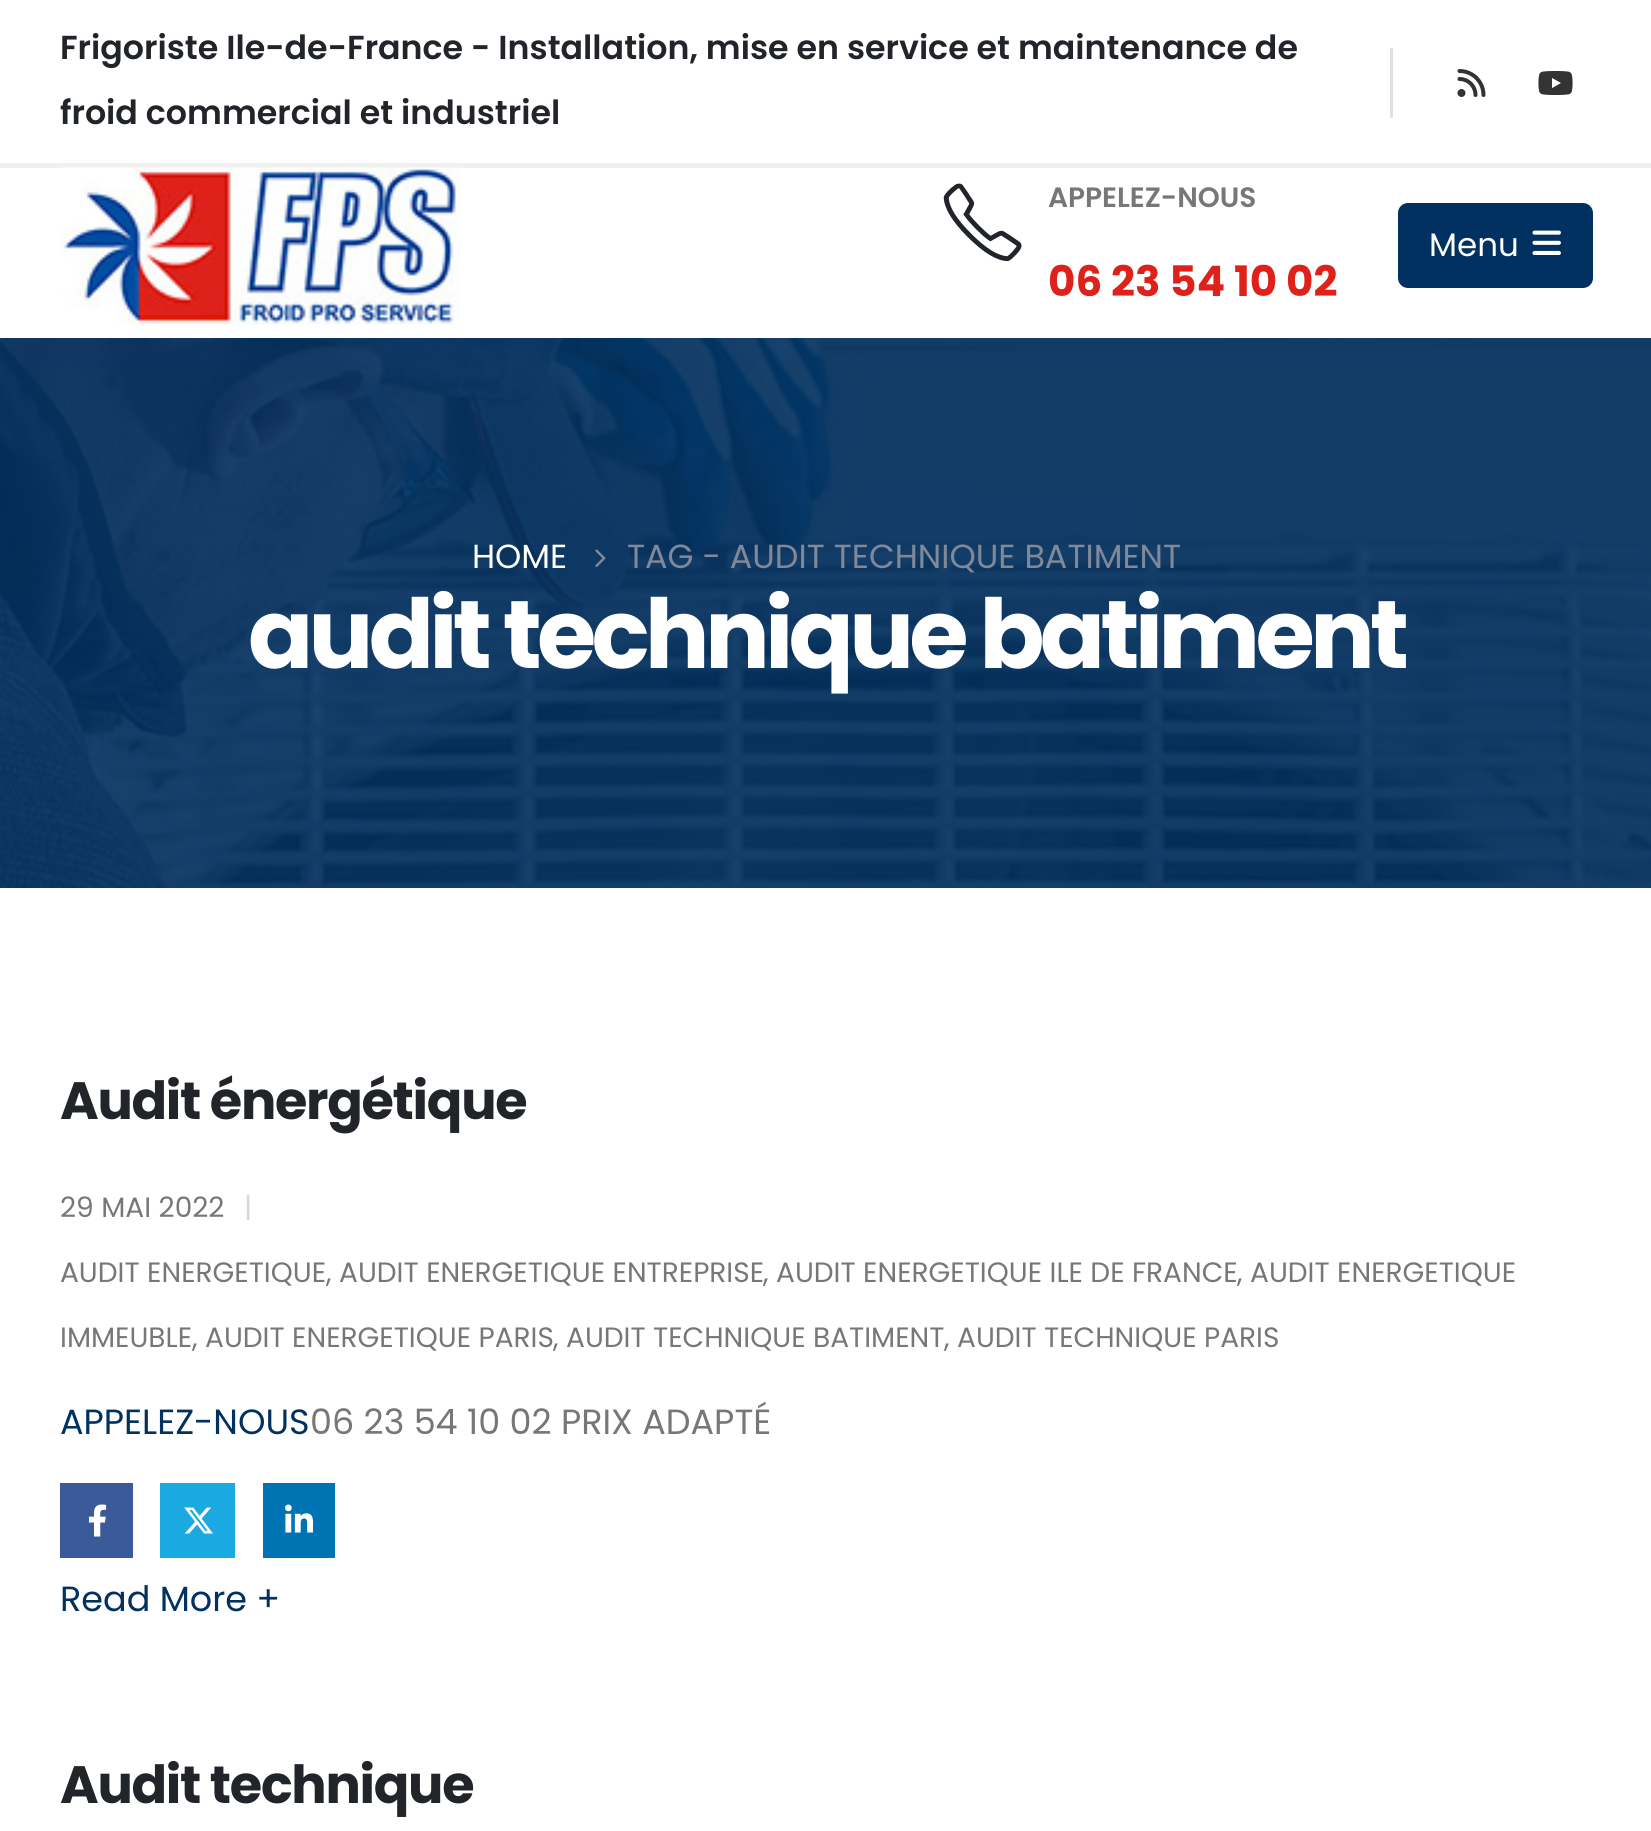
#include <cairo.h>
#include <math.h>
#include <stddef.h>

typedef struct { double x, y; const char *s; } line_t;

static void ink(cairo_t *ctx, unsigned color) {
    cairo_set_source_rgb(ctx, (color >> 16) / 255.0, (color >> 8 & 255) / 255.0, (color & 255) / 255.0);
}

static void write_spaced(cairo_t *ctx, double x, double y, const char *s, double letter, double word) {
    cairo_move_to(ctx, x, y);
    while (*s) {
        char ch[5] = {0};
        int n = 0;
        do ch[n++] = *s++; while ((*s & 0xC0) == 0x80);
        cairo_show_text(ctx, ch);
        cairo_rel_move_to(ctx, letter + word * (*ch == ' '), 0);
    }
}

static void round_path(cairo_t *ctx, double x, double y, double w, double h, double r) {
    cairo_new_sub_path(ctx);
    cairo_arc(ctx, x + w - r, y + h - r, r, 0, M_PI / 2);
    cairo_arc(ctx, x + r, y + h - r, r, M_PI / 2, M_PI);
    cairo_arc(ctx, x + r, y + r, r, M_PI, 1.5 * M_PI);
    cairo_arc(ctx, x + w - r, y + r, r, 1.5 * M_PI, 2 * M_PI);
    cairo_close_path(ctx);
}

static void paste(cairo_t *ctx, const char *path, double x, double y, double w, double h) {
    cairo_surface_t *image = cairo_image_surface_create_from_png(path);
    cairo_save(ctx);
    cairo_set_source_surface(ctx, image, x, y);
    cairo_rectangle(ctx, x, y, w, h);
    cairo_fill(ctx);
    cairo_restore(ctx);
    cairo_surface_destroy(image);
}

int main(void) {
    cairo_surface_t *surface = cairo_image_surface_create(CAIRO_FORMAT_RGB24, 1651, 1831);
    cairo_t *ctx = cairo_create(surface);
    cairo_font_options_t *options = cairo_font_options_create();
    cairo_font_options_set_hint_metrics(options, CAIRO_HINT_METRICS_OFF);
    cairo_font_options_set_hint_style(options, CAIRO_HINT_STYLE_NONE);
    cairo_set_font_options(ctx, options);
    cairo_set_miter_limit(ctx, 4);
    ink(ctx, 0xFFFFFF);
    cairo_paint(ctx);
    ink(ctx, 0xF0F0F0);
    cairo_rectangle(ctx, 0, 163, 1651, 5);
    cairo_fill(ctx);
    cairo_select_font_face(ctx, "Poppins SemiBold", CAIRO_FONT_SLANT_NORMAL, CAIRO_FONT_WEIGHT_NORMAL);
    cairo_set_font_size(ctx, 33.25);
    ink(ctx, 0x212529);
    cairo_move_to(ctx, 60, 59);
    cairo_show_text(ctx, "Frigoriste Ile-de-France - Installation, mise en service et maintenance de");
    cairo_move_to(ctx, 60, 124);
    cairo_show_text(ctx, "froid commercial et industriel");
    ink(ctx, 0xDEE2E6);
    cairo_rectangle(ctx, 1390, 48, 3, 70);
    cairo_fill(ctx);
    paste(ctx, "media/1.png", 1457, 69, 29, 28);
    paste(ctx, "media/2.png", 1538, 71, 35, 24);
    paste(ctx, "media/3.png", 60, 167, 400, 158);
    paste(ctx, "media/4.png", 943, 183, 79, 79);
    cairo_set_font_size(ctx, 28);
    ink(ctx, 0x777777);
    cairo_move_to(ctx, 1048, 207);
    cairo_show_text(ctx, "APPELEZ-NOUS");
    cairo_select_font_face(ctx, "Poppins", CAIRO_FONT_SLANT_NORMAL, CAIRO_FONT_WEIGHT_BOLD);
    cairo_set_font_size(ctx, 42);
    ink(ctx, 0xDE211B);
    cairo_move_to(ctx, 1048, 296);
    cairo_show_text(ctx, "06 23 54 10 02");
    ink(ctx, 0x013160);
    round_path(ctx, 1398, 203, 195, 85, 10);
    cairo_fill(ctx);
    cairo_select_font_face(ctx, "Poppins", CAIRO_FONT_SLANT_NORMAL, CAIRO_FONT_WEIGHT_NORMAL);
    cairo_set_font_size(ctx, 32.5);
    ink(ctx, 0xFFFFFF);
    cairo_move_to(ctx, 1429, 256);
    cairo_show_text(ctx, "Menu");
    paste(ctx, "media/5.png", 1532, 230, 29, 25);
    paste(ctx, "media/6.png", 0, 338, 1651, 550);
    cairo_set_font_size(ctx, 33.4);
    cairo_move_to(ctx, 472, 568);
    cairo_show_text(ctx, "HOME");
    paste(ctx, "media/7.png", 595, 549, 11, 19);
    ink(ctx, 0x818898);
    cairo_move_to(ctx, 627, 568);
    cairo_show_text(ctx, "TAG - AUDIT TECHNIQUE BATIMENT");
    cairo_select_font_face(ctx, "Poppins", CAIRO_FONT_SLANT_NORMAL, CAIRO_FONT_WEIGHT_BOLD);
    cairo_set_font_size(ctx, 96.25);
    ink(ctx, 0xFFFFFF);
    write_spaced(ctx, 248, 668, "audit technique batiment", -4.8, 0);
    cairo_set_font_size(ctx, 52.5);
    ink(ctx, 0x212529);
    write_spaced(ctx, 60, 1119, "Audit énergétique", -1.3, 0);
    cairo_select_font_face(ctx, "Poppins", CAIRO_FONT_SLANT_NORMAL, CAIRO_FONT_WEIGHT_NORMAL);
    cairo_set_font_size(ctx, 28);
    ink(ctx, 0x777777);
    cairo_move_to(ctx, 60, 1217);
    cairo_show_text(ctx, "29 MAI 2022");
    ink(ctx, 0xD6D6D6);
    cairo_move_to(ctx, 244, 1217);
    cairo_show_text(ctx, "|");
    ink(ctx, 0x777777);
    {
        static const line_t items[] = {
            {60, 1282, "AUDIT ENERGETIQUE, AUDIT ENERGETIQUE ENTREPRISE"},
            {763, 1282, ", AUDIT ENERGETIQUE ILE DE FRANCE"},
            {1237, 1282, ", AUDIT ENERGETIQUE"},
            {60, 1347, "IMMEUBLE, AUDIT ENERGETIQUE PARIS"},
            {553, 1347, ", AUDIT TECHNIQUE BATIMENT"},
            {944, 1347, ", AUDIT TECHNIQUE PARIS"},
        };
        for (size_t i = 0; i < sizeof items / sizeof *items; i++) {
            cairo_move_to(ctx, items[i].x, items[i].y);
            cairo_show_text(ctx, items[i].s);
        }
    }
    cairo_set_font_size(ctx, 35);
    ink(ctx, 0x013160);
    cairo_move_to(ctx, 60, 1434);
    cairo_show_text(ctx, "APPELEZ-NOUS");
    ink(ctx, 0x777777);
    cairo_move_to(ctx, 310, 1434);
    cairo_show_text(ctx, "06 23 54 10 02 PRIX ADAPTÉ");
    ink(ctx, 0x3B5A9A);
    cairo_rectangle(ctx, 60, 1483, 73, 75);
    cairo_fill(ctx);
    paste(ctx, "media/8.png", 88, 1504, 19, 33);
    ink(ctx, 0x1AA9E1);
    cairo_rectangle(ctx, 160, 1483, 75, 75);
    cairo_fill(ctx);
    paste(ctx, "media/9.png", 184, 1507, 29, 27);
    ink(ctx, 0x0073B2);
    cairo_rectangle(ctx, 263, 1483, 72, 75);
    cairo_fill(ctx);
    paste(ctx, "media/10.png", 285, 1504, 28, 29);
    ink(ctx, 0x013160);
    cairo_move_to(ctx, 60, 1611);
    cairo_show_text(ctx, "Read More +");
    cairo_select_font_face(ctx, "Poppins", CAIRO_FONT_SLANT_NORMAL, CAIRO_FONT_WEIGHT_BOLD);
    cairo_set_font_size(ctx, 52.5);
    ink(ctx, 0x212529);
    write_spaced(ctx, 60, 1803, "Audit technique", -1.3, 0);
    cairo_surface_write_to_png(surface, "image.png");
    cairo_font_options_destroy(options);
    cairo_destroy(ctx);
    cairo_surface_destroy(surface);
    return 0;
}
